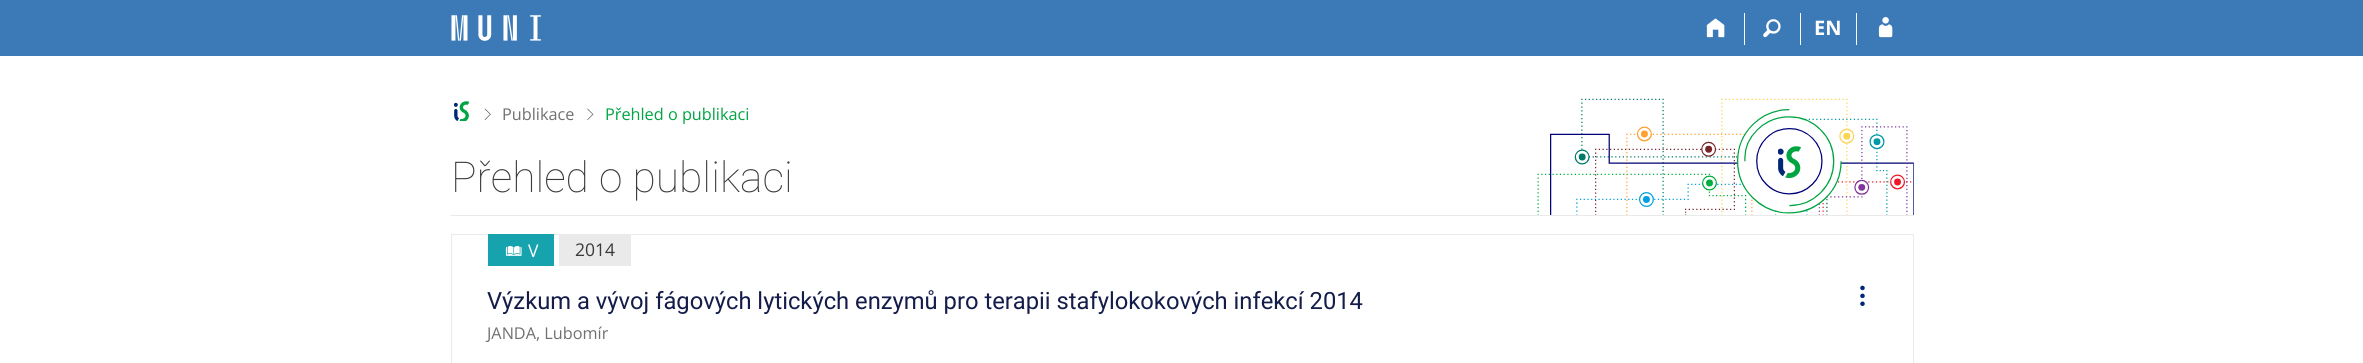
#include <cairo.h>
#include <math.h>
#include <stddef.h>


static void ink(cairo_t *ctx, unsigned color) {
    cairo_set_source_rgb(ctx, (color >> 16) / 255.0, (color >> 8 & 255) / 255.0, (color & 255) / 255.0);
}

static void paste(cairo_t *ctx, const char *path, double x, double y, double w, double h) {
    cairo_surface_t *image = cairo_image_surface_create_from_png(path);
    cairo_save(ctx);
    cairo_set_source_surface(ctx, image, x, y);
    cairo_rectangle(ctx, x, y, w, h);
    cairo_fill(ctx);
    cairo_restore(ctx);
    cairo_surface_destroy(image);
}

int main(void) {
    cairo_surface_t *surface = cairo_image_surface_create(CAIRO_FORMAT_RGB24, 2363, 363);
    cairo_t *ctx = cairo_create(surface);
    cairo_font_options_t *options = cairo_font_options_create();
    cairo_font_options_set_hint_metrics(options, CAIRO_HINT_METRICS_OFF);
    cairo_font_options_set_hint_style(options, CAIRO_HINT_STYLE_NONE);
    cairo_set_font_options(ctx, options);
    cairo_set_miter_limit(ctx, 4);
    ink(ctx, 0xFFFFFF);
    cairo_paint(ctx);
    ink(ctx, 0x3C7AB7);
    cairo_rectangle(ctx, 0, 0, 2363, 56);
    cairo_fill(ctx);
    paste(ctx, "media/1.png", 451, 15, 90, 26);
    ink(ctx, 0xFFFFFF);
    cairo_rectangle(ctx, 1744, 13, 1, 32);
    cairo_fill(ctx);
    paste(ctx, "media/2.png", 1706, 18, 19, 20);
    cairo_rectangle(ctx, 1800, 13, 1, 32);
    cairo_fill(ctx);
    paste(ctx, "media/3.png", 1763, 19, 18, 19);
    cairo_rectangle(ctx, 1856, 13, 1, 32);
    cairo_fill(ctx);
    cairo_select_font_face(ctx, "Open Sans", CAIRO_FONT_SLANT_NORMAL, CAIRO_FONT_WEIGHT_BOLD);
    cairo_set_font_size(ctx, 20);
    cairo_move_to(ctx, 1814, 35);
    cairo_show_text(ctx, "EN");
    paste(ctx, "media/4.png", 1878, 17, 15, 21);
    paste(ctx, "media/5.png", 454, 101, 15, 20);
    paste(ctx, "media/6.png", 484, 108, 7, 12);
    cairo_select_font_face(ctx, "Open Sans", CAIRO_FONT_SLANT_NORMAL, CAIRO_FONT_WEIGHT_NORMAL);
    cairo_set_font_size(ctx, 16.25);
    ink(ctx, 0x707070);
    cairo_move_to(ctx, 502, 120);
    cairo_show_text(ctx, "Publikace");
    paste(ctx, "media/7.png", 587, 108, 7, 12);
    ink(ctx, 0x00A442);
    cairo_move_to(ctx, 605, 120);
    cairo_show_text(ctx, "Přehled o publikaci");
    cairo_select_font_face(ctx, "Roboto Thin", CAIRO_FONT_SLANT_NORMAL, CAIRO_FONT_WEIGHT_NORMAL);
    cairo_set_font_size(ctx, 42.5);
    ink(ctx, 0x3A3A3A);
    cairo_move_to(ctx, 451, 192);
    cairo_show_text(ctx, "Přehled o publikaci");
    paste(ctx, "media/8.png", 1537, 98, 377, 117);
    paste(ctx, "media/9.png", 1778, 146, 23, 32);
    ink(ctx, 0xEAEAEA);
    cairo_rectangle(ctx, 451, 215, 1463, 1);
    cairo_fill(ctx);
    cairo_rectangle(ctx, 451.5, 234.5, 1462, 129);
    cairo_set_line_width(ctx, 1);
    cairo_stroke(ctx);
    ink(ctx, 0x16A3AE);
    cairo_rectangle(ctx, 488, 234, 66, 32);
    cairo_fill(ctx);
    paste(ctx, "media/10.png", 505, 246, 17, 10);
    cairo_select_font_face(ctx, "Open Sans", CAIRO_FONT_SLANT_NORMAL, CAIRO_FONT_WEIGHT_NORMAL);
    cairo_set_font_size(ctx, 17.5);
    ink(ctx, 0xFFFFFF);
    cairo_move_to(ctx, 528, 257);
    cairo_show_text(ctx, "V");
    ink(ctx, 0xEAEAEA);
    cairo_rectangle(ctx, 559, 235, 72, 31);
    cairo_fill(ctx);
    ink(ctx, 0x3A3A3A);
    cairo_move_to(ctx, 575, 256);
    cairo_show_text(ctx, "2014");
    cairo_select_font_face(ctx, "Roboto", CAIRO_FONT_SLANT_NORMAL, CAIRO_FONT_WEIGHT_NORMAL);
    cairo_set_font_size(ctx, 23.75);
    ink(ctx, 0x141C4A);
    cairo_move_to(ctx, 487, 309);
    cairo_show_text(ctx, "Výzkum a vývoj fágových lytických enzymů pro terapii stafylokokových infekcí 2014");
    cairo_select_font_face(ctx, "Open Sans", CAIRO_FONT_SLANT_NORMAL, CAIRO_FONT_WEIGHT_NORMAL);
    cairo_set_font_size(ctx, 16.25);
    ink(ctx, 0x707070);
    cairo_move_to(ctx, 487, 339);
    cairo_show_text(ctx, "JANDA, Lubomír");
    paste(ctx, "media/11.png", 1860, 285, 5, 21);
    cairo_surface_write_to_png(surface, "image.png");
    cairo_font_options_destroy(options);
    cairo_destroy(ctx);
    cairo_surface_destroy(surface);
    return 0;
}
